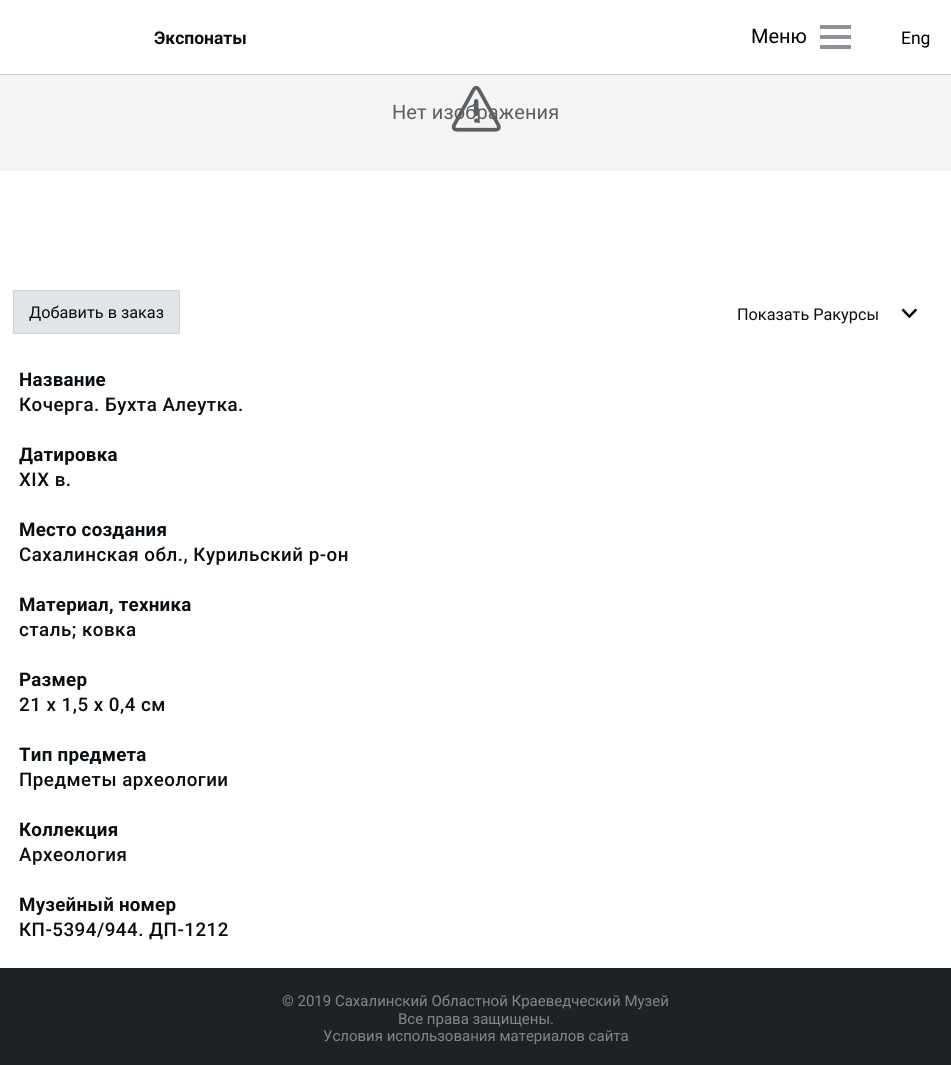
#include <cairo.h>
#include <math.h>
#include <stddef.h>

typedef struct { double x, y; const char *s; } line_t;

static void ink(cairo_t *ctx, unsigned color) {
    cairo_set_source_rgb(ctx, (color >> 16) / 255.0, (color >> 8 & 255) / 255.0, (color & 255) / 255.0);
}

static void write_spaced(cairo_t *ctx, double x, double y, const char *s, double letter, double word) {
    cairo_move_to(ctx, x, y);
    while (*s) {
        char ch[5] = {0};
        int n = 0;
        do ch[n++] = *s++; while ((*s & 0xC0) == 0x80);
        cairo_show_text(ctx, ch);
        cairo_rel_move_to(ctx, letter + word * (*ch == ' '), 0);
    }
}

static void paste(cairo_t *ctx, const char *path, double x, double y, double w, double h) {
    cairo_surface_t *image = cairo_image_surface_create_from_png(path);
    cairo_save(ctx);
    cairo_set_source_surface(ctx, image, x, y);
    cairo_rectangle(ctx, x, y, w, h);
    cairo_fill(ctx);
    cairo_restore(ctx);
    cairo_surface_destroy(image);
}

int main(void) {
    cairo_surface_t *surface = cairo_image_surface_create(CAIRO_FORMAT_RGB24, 951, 1065);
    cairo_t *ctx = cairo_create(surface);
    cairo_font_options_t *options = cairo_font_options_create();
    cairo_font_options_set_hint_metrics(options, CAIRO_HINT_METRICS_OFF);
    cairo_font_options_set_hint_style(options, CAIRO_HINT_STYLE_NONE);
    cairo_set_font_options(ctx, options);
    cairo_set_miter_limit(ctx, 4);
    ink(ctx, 0xFFFFFF);
    cairo_paint(ctx);
    ink(ctx, 0xD3D3D3);
    cairo_rectangle(ctx, 0, 74, 951, 1);
    cairo_fill(ctx);
    cairo_select_font_face(ctx, "Roboto", CAIRO_FONT_SLANT_NORMAL, CAIRO_FONT_WEIGHT_BOLD);
    cairo_set_font_size(ctx, 17.5);
    ink(ctx, 0x0A0D10);
    cairo_move_to(ctx, 154, 44);
    cairo_show_text(ctx, "Экспонаты");
    ink(ctx, 0x8E9195);
    cairo_rectangle(ctx, 820, 25, 31, 4);
    cairo_fill(ctx);
    cairo_select_font_face(ctx, "Roboto", CAIRO_FONT_SLANT_NORMAL, CAIRO_FONT_WEIGHT_NORMAL);
    cairo_set_font_size(ctx, 20);
    ink(ctx, 0x000000);
    cairo_move_to(ctx, 751, 43);
    cairo_show_text(ctx, "Меню");
    ink(ctx, 0x8E9195);
    cairo_rectangle(ctx, 820, 35, 31, 4);
    cairo_fill(ctx);
    cairo_rectangle(ctx, 820, 45, 31, 4);
    cairo_fill(ctx);
    cairo_set_font_size(ctx, 17.5);
    ink(ctx, 0x000000);
    cairo_move_to(ctx, 901, 44);
    cairo_show_text(ctx, "Eng");
    ink(ctx, 0xF4F4F5);
    cairo_rectangle(ctx, 0, 75, 951, 96);
    cairo_fill(ctx);
    cairo_set_font_size(ctx, 20);
    ink(ctx, 0x5C5F62);
    write_spaced(ctx, 392, 119, "Нет изображения", 0.1, 0);
    paste(ctx, "media/1.png", 451, 85, 50, 47);
    ink(ctx, 0xE2E5E8);
    cairo_rectangle(ctx, 13.5, 290.5, 166, 43);
    cairo_fill_preserve(ctx);
    ink(ctx, 0xD3D3D3);
    cairo_set_line_width(ctx, 1);
    cairo_stroke(ctx);
    cairo_set_font_size(ctx, 16.25);
    ink(ctx, 0x0A0D10);
    cairo_move_to(ctx, 29, 318);
    cairo_show_text(ctx, "Добавить в заказ");
    cairo_move_to(ctx, 737, 320);
    cairo_show_text(ctx, "Показать Ракурсы");
    paste(ctx, "media/2.png", 901, 308, 16, 10);
    cairo_select_font_face(ctx, "Roboto", CAIRO_FONT_SLANT_NORMAL, CAIRO_FONT_WEIGHT_BOLD);
    cairo_set_font_size(ctx, 18.75);
    write_spaced(ctx, 19, 386, "Название", 0.25, 0);
    cairo_select_font_face(ctx, "Roboto Medium", CAIRO_FONT_SLANT_NORMAL, CAIRO_FONT_WEIGHT_NORMAL);
    write_spaced(ctx, 19, 411, "Кочерга. Бухта Алеутка.", 0.5, 0);
    cairo_select_font_face(ctx, "Roboto", CAIRO_FONT_SLANT_NORMAL, CAIRO_FONT_WEIGHT_BOLD);
    write_spaced(ctx, 19, 461, "Датировка", 0.25, 0);
    cairo_select_font_face(ctx, "Roboto Medium", CAIRO_FONT_SLANT_NORMAL, CAIRO_FONT_WEIGHT_NORMAL);
    write_spaced(ctx, 19, 486, "ХIХ в.", 0.5, 0);
    cairo_select_font_face(ctx, "Roboto", CAIRO_FONT_SLANT_NORMAL, CAIRO_FONT_WEIGHT_BOLD);
    write_spaced(ctx, 19, 536, "Место создания", 0.25, 0);
    cairo_select_font_face(ctx, "Roboto Medium", CAIRO_FONT_SLANT_NORMAL, CAIRO_FONT_WEIGHT_NORMAL);
    write_spaced(ctx, 19, 561, "Сахалинская обл., Курильский р-он", 0.5, 0);
    cairo_select_font_face(ctx, "Roboto", CAIRO_FONT_SLANT_NORMAL, CAIRO_FONT_WEIGHT_BOLD);
    write_spaced(ctx, 19, 611, "Материал, техника", 0.25, 0);
    cairo_select_font_face(ctx, "Roboto Medium", CAIRO_FONT_SLANT_NORMAL, CAIRO_FONT_WEIGHT_NORMAL);
    write_spaced(ctx, 19, 636, "сталь; ковка", 0.5, 0);
    cairo_select_font_face(ctx, "Roboto", CAIRO_FONT_SLANT_NORMAL, CAIRO_FONT_WEIGHT_BOLD);
    write_spaced(ctx, 19, 686, "Размер", 0.25, 0);
    cairo_select_font_face(ctx, "Roboto Medium", CAIRO_FONT_SLANT_NORMAL, CAIRO_FONT_WEIGHT_NORMAL);
    write_spaced(ctx, 19, 711, "21 х 1,5 х 0,4 см", 0.5, 0);
    cairo_select_font_face(ctx, "Roboto", CAIRO_FONT_SLANT_NORMAL, CAIRO_FONT_WEIGHT_BOLD);
    write_spaced(ctx, 19, 761, "Тип предмета", 0.25, 0);
    cairo_select_font_face(ctx, "Roboto Medium", CAIRO_FONT_SLANT_NORMAL, CAIRO_FONT_WEIGHT_NORMAL);
    write_spaced(ctx, 19, 786, "Предметы археологии", 0.5, 0);
    cairo_select_font_face(ctx, "Roboto", CAIRO_FONT_SLANT_NORMAL, CAIRO_FONT_WEIGHT_BOLD);
    write_spaced(ctx, 19, 836, "Коллекция", 0.25, 0);
    cairo_select_font_face(ctx, "Roboto Medium", CAIRO_FONT_SLANT_NORMAL, CAIRO_FONT_WEIGHT_NORMAL);
    write_spaced(ctx, 19, 861, "Археология", 0.5, 0);
    cairo_select_font_face(ctx, "Roboto", CAIRO_FONT_SLANT_NORMAL, CAIRO_FONT_WEIGHT_BOLD);
    write_spaced(ctx, 19, 911, "Музейный номер", 0.25, 0);
    cairo_select_font_face(ctx, "Roboto Medium", CAIRO_FONT_SLANT_NORMAL, CAIRO_FONT_WEIGHT_NORMAL);
    write_spaced(ctx, 19, 936, "КП-5394/944. ДП-1212", 0.5, 0);
    ink(ctx, 0x1F2224);
    cairo_rectangle(ctx, 0, 968, 951, 97);
    cairo_fill(ctx);
    cairo_select_font_face(ctx, "Roboto", CAIRO_FONT_SLANT_NORMAL, CAIRO_FONT_WEIGHT_NORMAL);
    cairo_set_font_size(ctx, 15);
    ink(ctx, 0x858585);
    {
        static const line_t items[] = {
            {282, 1006, "© 2019 Сахалинский Областной Краеведческий Музей"},
            {398, 1024, "Все права защищены."},
            {323, 1041, "Условия использования материалов сайта"},
        };
        for (size_t i = 0; i < sizeof items / sizeof *items; i++) {
            cairo_move_to(ctx, items[i].x, items[i].y);
            cairo_show_text(ctx, items[i].s);
        }
    }
    cairo_surface_write_to_png(surface, "image.png");
    cairo_font_options_destroy(options);
    cairo_destroy(ctx);
    cairo_surface_destroy(surface);
    return 0;
}
